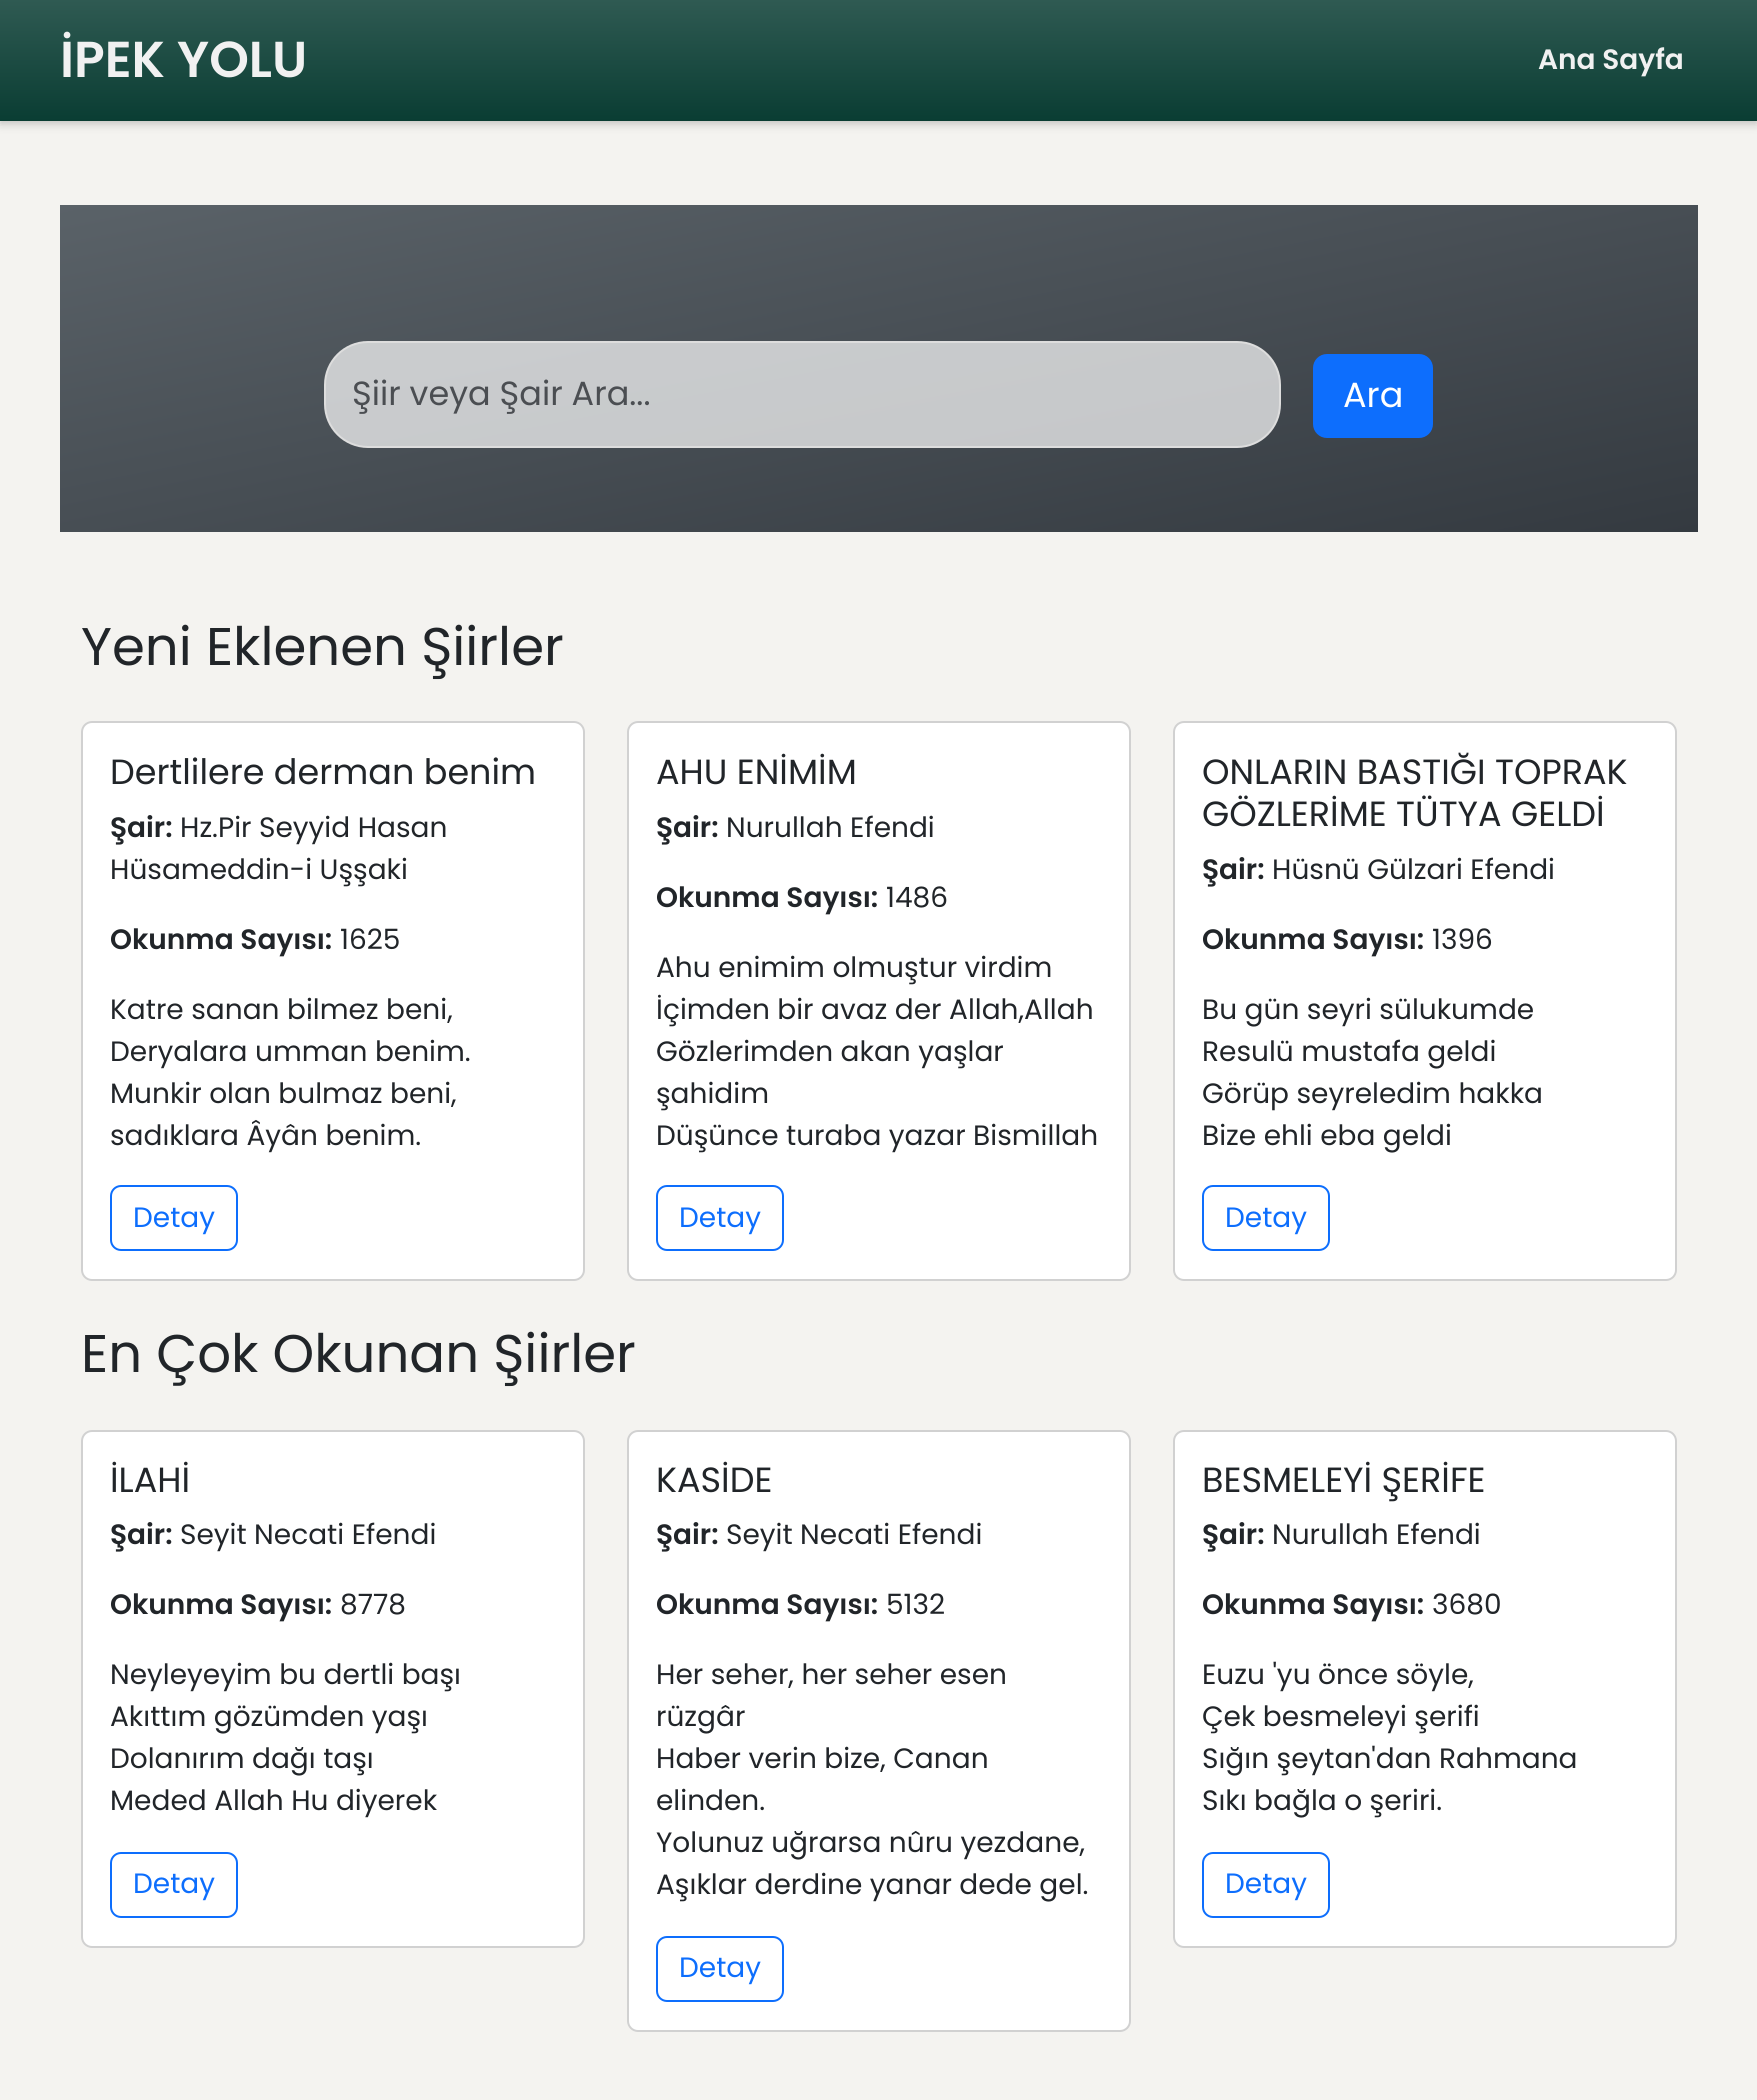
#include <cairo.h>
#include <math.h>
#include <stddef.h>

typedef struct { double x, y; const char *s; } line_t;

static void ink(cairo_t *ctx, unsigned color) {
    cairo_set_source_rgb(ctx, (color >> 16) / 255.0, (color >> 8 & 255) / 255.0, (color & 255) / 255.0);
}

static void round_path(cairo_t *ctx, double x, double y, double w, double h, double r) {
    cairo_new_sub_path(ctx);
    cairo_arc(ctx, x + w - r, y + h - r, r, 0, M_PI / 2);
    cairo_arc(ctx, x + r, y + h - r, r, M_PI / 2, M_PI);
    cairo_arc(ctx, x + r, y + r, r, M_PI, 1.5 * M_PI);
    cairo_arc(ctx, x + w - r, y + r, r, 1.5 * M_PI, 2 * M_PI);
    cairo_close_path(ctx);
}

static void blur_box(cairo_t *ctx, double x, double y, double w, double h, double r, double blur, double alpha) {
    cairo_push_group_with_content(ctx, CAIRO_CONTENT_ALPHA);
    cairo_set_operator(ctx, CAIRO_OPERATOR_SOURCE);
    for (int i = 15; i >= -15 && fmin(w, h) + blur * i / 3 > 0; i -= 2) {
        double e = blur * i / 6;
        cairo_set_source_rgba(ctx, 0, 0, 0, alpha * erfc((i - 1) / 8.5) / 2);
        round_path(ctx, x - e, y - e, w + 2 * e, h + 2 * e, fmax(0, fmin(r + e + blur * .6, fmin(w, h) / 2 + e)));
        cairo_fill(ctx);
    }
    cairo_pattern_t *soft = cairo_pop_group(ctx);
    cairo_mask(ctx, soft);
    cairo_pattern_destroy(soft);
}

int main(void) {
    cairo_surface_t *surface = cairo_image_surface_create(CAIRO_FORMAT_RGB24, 1757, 2100);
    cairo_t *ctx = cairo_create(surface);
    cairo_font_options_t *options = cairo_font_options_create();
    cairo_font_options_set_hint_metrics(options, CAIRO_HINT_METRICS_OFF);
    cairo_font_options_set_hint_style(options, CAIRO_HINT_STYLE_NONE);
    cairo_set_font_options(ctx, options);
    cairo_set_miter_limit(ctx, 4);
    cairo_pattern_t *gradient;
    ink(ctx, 0xF4F3F0);
    cairo_paint(ctx);
    ink(ctx, 0x000000);
    blur_box(ctx, 0, 4, 1757, 120, 0, 4.5, 0.2);
    gradient = cairo_pattern_create_linear(879, 0, 879, 121);
    cairo_pattern_add_color_stop_rgba(gradient, 0, 0.184, 0.353, 0.322, 1);
    cairo_pattern_add_color_stop_rgba(gradient, 1, 0.039, 0.239, 0.2, 1);
    cairo_set_source(ctx, gradient);
    cairo_pattern_destroy(gradient);
    cairo_rectangle(ctx, 0, 0, 1757, 121);
    cairo_fill(ctx);
    cairo_select_font_face(ctx, "Poppins SemiBold", CAIRO_FONT_SLANT_NORMAL, CAIRO_FONT_WEIGHT_NORMAL);
    cairo_set_font_size(ctx, 50.5);
    ink(ctx, 0xF1F1F1);
    cairo_move_to(ctx, 60, 77);
    cairo_show_text(ctx, "İPEK YOLU");
    cairo_set_font_size(ctx, 28);
    cairo_move_to(ctx, 1538, 69);
    cairo_show_text(ctx, "Ana Sayfa");
    gradient = cairo_pattern_create_linear(816, 54, 941, 683);
    cairo_pattern_add_color_stop_rgba(gradient, 0, 0.353, 0.384, 0.408, 1);
    cairo_pattern_add_color_stop_rgba(gradient, 1, 0.204, 0.227, 0.251, 1);
    cairo_set_source(ctx, gradient);
    cairo_pattern_destroy(gradient);
    cairo_rectangle(ctx, 60, 205, 1638, 327);
    cairo_fill(ctx);
    cairo_set_source_rgba(ctx, 1, 1, 1, 0.7);
    round_path(ctx, 325, 342, 955, 105, 43);
    cairo_fill_preserve(ctx);
    ink(ctx, 0xDDDDDD);
    cairo_stroke(ctx);
    cairo_select_font_face(ctx, "Poppins", CAIRO_FONT_SLANT_NORMAL, CAIRO_FONT_WEIGHT_NORMAL);
    cairo_set_font_size(ctx, 33.5);
    ink(ctx, 0x4B4E52);
    cairo_move_to(ctx, 352, 405);
    cairo_show_text(ctx, "Şiir veya Şair Ara...");
    ink(ctx, 0x0D6EFD);
    round_path(ctx, 1314, 355, 118, 82, 13);
    cairo_fill_preserve(ctx);
    cairo_stroke(ctx);
    cairo_set_font_size(ctx, 35);
    ink(ctx, 0xFFFFFF);
    cairo_move_to(ctx, 1343, 407);
    cairo_show_text(ctx, "Ara");
    cairo_set_font_size(ctx, 53);
    ink(ctx, 0x212529);
    cairo_move_to(ctx, 81, 665);
    cairo_show_text(ctx, "Yeni Eklenen Şiirler");
    ink(ctx, 0xFFFFFF);
    round_path(ctx, 81, 721, 504, 560, 11);
    cairo_fill(ctx);
    round_path(ctx, 82, 722, 502, 558, 10);
    cairo_set_source_rgba(ctx, 0, 0, 0, 0.18);
    cairo_stroke(ctx);
    cairo_set_font_size(ctx, 35);
    ink(ctx, 0x212529);
    cairo_move_to(ctx, 110, 784);
    cairo_show_text(ctx, "Dertlilere derman benim");
    cairo_select_font_face(ctx, "Poppins SemiBold", CAIRO_FONT_SLANT_NORMAL, CAIRO_FONT_WEIGHT_NORMAL);
    cairo_set_font_size(ctx, 28);
    cairo_move_to(ctx, 110, 837);
    cairo_show_text(ctx, "Şair:");
    cairo_select_font_face(ctx, "Poppins", CAIRO_FONT_SLANT_NORMAL, CAIRO_FONT_WEIGHT_NORMAL);
    cairo_move_to(ctx, 180, 837);
    cairo_show_text(ctx, "Hz.Pir Seyyid Hasan");
    cairo_move_to(ctx, 110, 879);
    cairo_show_text(ctx, "Hüsameddin-i Uşşaki");
    cairo_select_font_face(ctx, "Poppins SemiBold", CAIRO_FONT_SLANT_NORMAL, CAIRO_FONT_WEIGHT_NORMAL);
    cairo_move_to(ctx, 110, 949);
    cairo_show_text(ctx, "Okunma Sayısı:");
    cairo_select_font_face(ctx, "Poppins", CAIRO_FONT_SLANT_NORMAL, CAIRO_FONT_WEIGHT_NORMAL);
    {
        static const line_t items[] = {
            {340, 949, "1625"},
            {110, 1019, "Katre sanan bilmez beni,"},
            {110, 1061, "Deryalara umman benim."},
            {110, 1103, "Munkir olan bulmaz beni,"},
            {110, 1145, "sadıklara Âyân benim."},
        };
        for (size_t i = 0; i < sizeof items / sizeof *items; i++) {
            cairo_move_to(ctx, items[i].x, items[i].y);
            cairo_show_text(ctx, items[i].s);
        }
    }
    round_path(ctx, 111, 1186, 126, 64, 10);
    ink(ctx, 0x0D6EFD);
    cairo_stroke(ctx);
    cairo_move_to(ctx, 133, 1227);
    cairo_show_text(ctx, "Detay");
    ink(ctx, 0xFFFFFF);
    round_path(ctx, 627, 721, 504, 560, 11);
    cairo_fill(ctx);
    round_path(ctx, 628, 722, 502, 558, 10);
    cairo_set_source_rgba(ctx, 0, 0, 0, 0.18);
    cairo_stroke(ctx);
    cairo_set_font_size(ctx, 35);
    ink(ctx, 0x212529);
    cairo_move_to(ctx, 656, 784);
    cairo_show_text(ctx, "AHU ENİMİM");
    cairo_select_font_face(ctx, "Poppins SemiBold", CAIRO_FONT_SLANT_NORMAL, CAIRO_FONT_WEIGHT_NORMAL);
    cairo_set_font_size(ctx, 28);
    cairo_move_to(ctx, 656, 837);
    cairo_show_text(ctx, "Şair:");
    cairo_select_font_face(ctx, "Poppins", CAIRO_FONT_SLANT_NORMAL, CAIRO_FONT_WEIGHT_NORMAL);
    cairo_move_to(ctx, 726, 837);
    cairo_show_text(ctx, "Nurullah Efendi");
    cairo_select_font_face(ctx, "Poppins SemiBold", CAIRO_FONT_SLANT_NORMAL, CAIRO_FONT_WEIGHT_NORMAL);
    cairo_move_to(ctx, 656, 907);
    cairo_show_text(ctx, "Okunma Sayısı:");
    cairo_select_font_face(ctx, "Poppins", CAIRO_FONT_SLANT_NORMAL, CAIRO_FONT_WEIGHT_NORMAL);
    {
        static const line_t items[] = {
            {886, 907, "1486"},
            {656, 977, "Ahu enimim olmuştur virdim"},
            {656, 1019, "İçimden bir avaz der Allah,Allah"},
            {656, 1061, "Gözlerimden akan yaşlar"},
            {656, 1103, "şahidim"},
            {656, 1145, "Düşünce turaba yazar Bismillah"},
        };
        for (size_t i = 0; i < sizeof items / sizeof *items; i++) {
            cairo_move_to(ctx, items[i].x, items[i].y);
            cairo_show_text(ctx, items[i].s);
        }
    }
    round_path(ctx, 657, 1186, 126, 64, 10);
    ink(ctx, 0x0D6EFD);
    cairo_stroke(ctx);
    cairo_move_to(ctx, 679, 1227);
    cairo_show_text(ctx, "Detay");
    ink(ctx, 0xFFFFFF);
    round_path(ctx, 1173, 721, 504, 560, 11);
    cairo_fill(ctx);
    round_path(ctx, 1174, 722, 502, 558, 10);
    cairo_set_source_rgba(ctx, 0, 0, 0, 0.18);
    cairo_stroke(ctx);
    cairo_set_font_size(ctx, 35);
    ink(ctx, 0x212529);
    cairo_move_to(ctx, 1202, 784);
    cairo_show_text(ctx, "ONLARIN BASTIĞI TOPRAK");
    cairo_move_to(ctx, 1202, 826);
    cairo_show_text(ctx, "GÖZLERİME TÜTYA GELDİ");
    cairo_select_font_face(ctx, "Poppins SemiBold", CAIRO_FONT_SLANT_NORMAL, CAIRO_FONT_WEIGHT_NORMAL);
    cairo_set_font_size(ctx, 28);
    cairo_move_to(ctx, 1202, 879);
    cairo_show_text(ctx, "Şair:");
    cairo_select_font_face(ctx, "Poppins", CAIRO_FONT_SLANT_NORMAL, CAIRO_FONT_WEIGHT_NORMAL);
    cairo_move_to(ctx, 1272, 879);
    cairo_show_text(ctx, "Hüsnü Gülzari Efendi");
    cairo_select_font_face(ctx, "Poppins SemiBold", CAIRO_FONT_SLANT_NORMAL, CAIRO_FONT_WEIGHT_NORMAL);
    cairo_move_to(ctx, 1202, 949);
    cairo_show_text(ctx, "Okunma Sayısı:");
    cairo_select_font_face(ctx, "Poppins", CAIRO_FONT_SLANT_NORMAL, CAIRO_FONT_WEIGHT_NORMAL);
    {
        static const line_t items[] = {
            {1432, 949, "1396"},
            {1202, 1019, "Bu gün seyri sülukumde"},
            {1202, 1061, "Resulü mustafa geldi"},
            {1202, 1103, "Görüp seyreledim hakka"},
            {1202, 1145, "Bize ehli eba geldi"},
        };
        for (size_t i = 0; i < sizeof items / sizeof *items; i++) {
            cairo_move_to(ctx, items[i].x, items[i].y);
            cairo_show_text(ctx, items[i].s);
        }
    }
    round_path(ctx, 1203, 1186, 126, 64, 10);
    ink(ctx, 0x0D6EFD);
    cairo_stroke(ctx);
    cairo_move_to(ctx, 1225, 1227);
    cairo_show_text(ctx, "Detay");
    cairo_set_font_size(ctx, 53);
    ink(ctx, 0x212529);
    cairo_move_to(ctx, 81, 1372);
    cairo_show_text(ctx, "En Çok Okunan Şiirler");
    ink(ctx, 0xFFFFFF);
    round_path(ctx, 81, 1430, 504, 518, 11);
    cairo_fill(ctx);
    round_path(ctx, 82, 1431, 502, 516, 10);
    cairo_set_source_rgba(ctx, 0, 0, 0, 0.18);
    cairo_stroke(ctx);
    cairo_set_font_size(ctx, 35);
    ink(ctx, 0x212529);
    cairo_move_to(ctx, 110, 1492);
    cairo_show_text(ctx, "İLAHİ");
    cairo_select_font_face(ctx, "Poppins SemiBold", CAIRO_FONT_SLANT_NORMAL, CAIRO_FONT_WEIGHT_NORMAL);
    cairo_set_font_size(ctx, 28);
    cairo_move_to(ctx, 110, 1544);
    cairo_show_text(ctx, "Şair:");
    cairo_select_font_face(ctx, "Poppins", CAIRO_FONT_SLANT_NORMAL, CAIRO_FONT_WEIGHT_NORMAL);
    cairo_move_to(ctx, 180, 1544);
    cairo_show_text(ctx, "Seyit Necati Efendi");
    cairo_select_font_face(ctx, "Poppins SemiBold", CAIRO_FONT_SLANT_NORMAL, CAIRO_FONT_WEIGHT_NORMAL);
    cairo_move_to(ctx, 110, 1614);
    cairo_show_text(ctx, "Okunma Sayısı:");
    cairo_select_font_face(ctx, "Poppins", CAIRO_FONT_SLANT_NORMAL, CAIRO_FONT_WEIGHT_NORMAL);
    {
        static const line_t items[] = {
            {340, 1614, "8778"},
            {110, 1684, "Neyleyeyim bu dertli başı"},
            {110, 1726, "Akıttım gözümden yaşı"},
            {110, 1768, "Dolanırım dağı taşı"},
            {110, 1810, "Meded Allah Hu diyerek"},
        };
        for (size_t i = 0; i < sizeof items / sizeof *items; i++) {
            cairo_move_to(ctx, items[i].x, items[i].y);
            cairo_show_text(ctx, items[i].s);
        }
    }
    round_path(ctx, 111, 1853, 126, 64, 10);
    ink(ctx, 0x0D6EFD);
    cairo_stroke(ctx);
    cairo_move_to(ctx, 133, 1893);
    cairo_show_text(ctx, "Detay");
    ink(ctx, 0xFFFFFF);
    round_path(ctx, 627, 1430, 504, 602, 11);
    cairo_fill(ctx);
    round_path(ctx, 628, 1431, 502, 600, 10);
    cairo_set_source_rgba(ctx, 0, 0, 0, 0.18);
    cairo_stroke(ctx);
    cairo_set_font_size(ctx, 35);
    ink(ctx, 0x212529);
    cairo_move_to(ctx, 656, 1492);
    cairo_show_text(ctx, "KASİDE");
    cairo_select_font_face(ctx, "Poppins SemiBold", CAIRO_FONT_SLANT_NORMAL, CAIRO_FONT_WEIGHT_NORMAL);
    cairo_set_font_size(ctx, 28);
    cairo_move_to(ctx, 656, 1544);
    cairo_show_text(ctx, "Şair:");
    cairo_select_font_face(ctx, "Poppins", CAIRO_FONT_SLANT_NORMAL, CAIRO_FONT_WEIGHT_NORMAL);
    cairo_move_to(ctx, 726, 1544);
    cairo_show_text(ctx, "Seyit Necati Efendi");
    cairo_select_font_face(ctx, "Poppins SemiBold", CAIRO_FONT_SLANT_NORMAL, CAIRO_FONT_WEIGHT_NORMAL);
    cairo_move_to(ctx, 656, 1614);
    cairo_show_text(ctx, "Okunma Sayısı:");
    cairo_select_font_face(ctx, "Poppins", CAIRO_FONT_SLANT_NORMAL, CAIRO_FONT_WEIGHT_NORMAL);
    {
        static const line_t items[] = {
            {886, 1614, "5132"},
            {656, 1684, "Her seher, her seher esen"},
            {656, 1726, "rüzgâr"},
            {656, 1768, "Haber verin bize, Canan"},
            {656, 1810, "elinden."},
            {656, 1852, "Yolunuz uğrarsa nûru yezdane,"},
            {656, 1894, "Aşıklar derdine yanar dede gel."},
        };
        for (size_t i = 0; i < sizeof items / sizeof *items; i++) {
            cairo_move_to(ctx, items[i].x, items[i].y);
            cairo_show_text(ctx, items[i].s);
        }
    }
    round_path(ctx, 657, 1937, 126, 64, 10);
    ink(ctx, 0x0D6EFD);
    cairo_stroke(ctx);
    cairo_move_to(ctx, 679, 1977);
    cairo_show_text(ctx, "Detay");
    ink(ctx, 0xFFFFFF);
    round_path(ctx, 1173, 1430, 504, 518, 11);
    cairo_fill(ctx);
    round_path(ctx, 1174, 1431, 502, 516, 10);
    cairo_set_source_rgba(ctx, 0, 0, 0, 0.18);
    cairo_stroke(ctx);
    cairo_set_font_size(ctx, 35);
    ink(ctx, 0x212529);
    cairo_move_to(ctx, 1202, 1492);
    cairo_show_text(ctx, "BESMELEYİ ŞERİFE");
    cairo_select_font_face(ctx, "Poppins SemiBold", CAIRO_FONT_SLANT_NORMAL, CAIRO_FONT_WEIGHT_NORMAL);
    cairo_set_font_size(ctx, 28);
    cairo_move_to(ctx, 1202, 1544);
    cairo_show_text(ctx, "Şair:");
    cairo_select_font_face(ctx, "Poppins", CAIRO_FONT_SLANT_NORMAL, CAIRO_FONT_WEIGHT_NORMAL);
    cairo_move_to(ctx, 1272, 1544);
    cairo_show_text(ctx, "Nurullah Efendi");
    cairo_select_font_face(ctx, "Poppins SemiBold", CAIRO_FONT_SLANT_NORMAL, CAIRO_FONT_WEIGHT_NORMAL);
    cairo_move_to(ctx, 1202, 1614);
    cairo_show_text(ctx, "Okunma Sayısı:");
    cairo_select_font_face(ctx, "Poppins", CAIRO_FONT_SLANT_NORMAL, CAIRO_FONT_WEIGHT_NORMAL);
    {
        static const line_t items[] = {
            {1432, 1614, "3680"},
            {1202, 1684, "Euzu 'yu önce söyle,"},
            {1202, 1726, "Çek besmeleyi şerifi"},
            {1202, 1768, "Sığın şeytan'dan Rahmana"},
            {1202, 1810, "Sıkı bağla o şeriri."},
        };
        for (size_t i = 0; i < sizeof items / sizeof *items; i++) {
            cairo_move_to(ctx, items[i].x, items[i].y);
            cairo_show_text(ctx, items[i].s);
        }
    }
    round_path(ctx, 1203, 1853, 126, 64, 10);
    ink(ctx, 0x0D6EFD);
    cairo_stroke(ctx);
    cairo_move_to(ctx, 1225, 1893);
    cairo_show_text(ctx, "Detay");
    cairo_surface_write_to_png(surface, "image.png");
    cairo_font_options_destroy(options);
    cairo_destroy(ctx);
    cairo_surface_destroy(surface);
    return 0;
}
